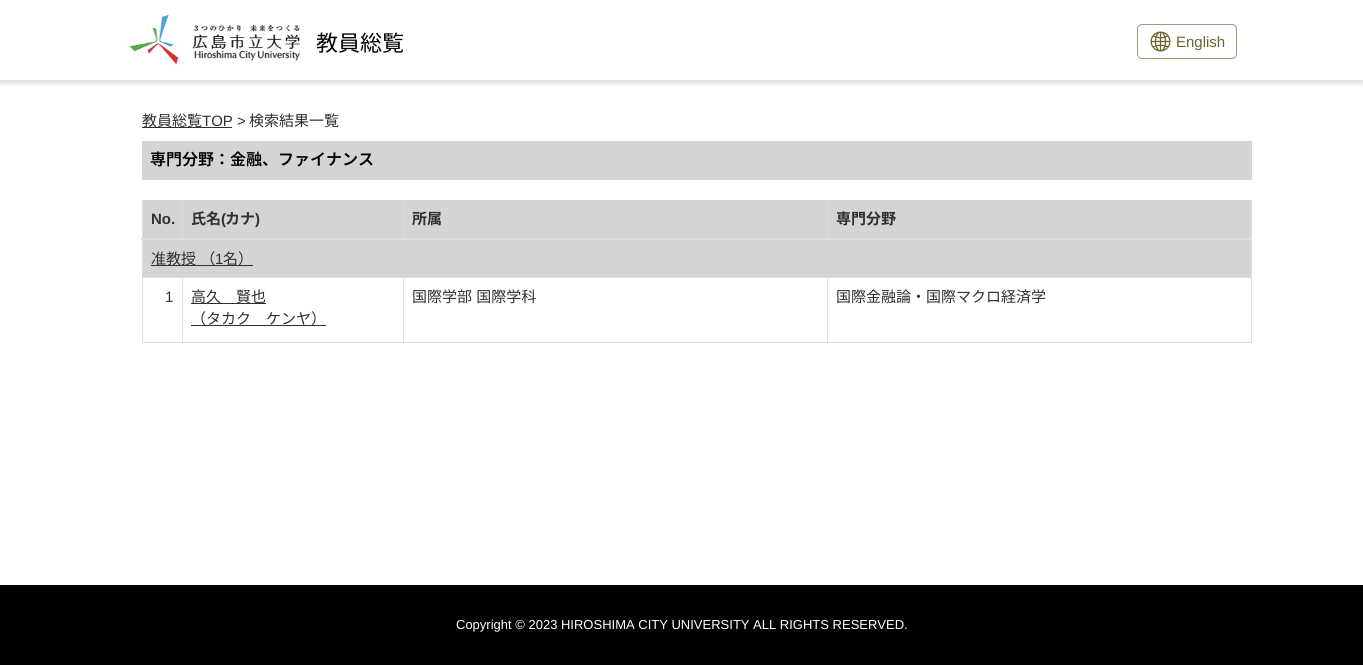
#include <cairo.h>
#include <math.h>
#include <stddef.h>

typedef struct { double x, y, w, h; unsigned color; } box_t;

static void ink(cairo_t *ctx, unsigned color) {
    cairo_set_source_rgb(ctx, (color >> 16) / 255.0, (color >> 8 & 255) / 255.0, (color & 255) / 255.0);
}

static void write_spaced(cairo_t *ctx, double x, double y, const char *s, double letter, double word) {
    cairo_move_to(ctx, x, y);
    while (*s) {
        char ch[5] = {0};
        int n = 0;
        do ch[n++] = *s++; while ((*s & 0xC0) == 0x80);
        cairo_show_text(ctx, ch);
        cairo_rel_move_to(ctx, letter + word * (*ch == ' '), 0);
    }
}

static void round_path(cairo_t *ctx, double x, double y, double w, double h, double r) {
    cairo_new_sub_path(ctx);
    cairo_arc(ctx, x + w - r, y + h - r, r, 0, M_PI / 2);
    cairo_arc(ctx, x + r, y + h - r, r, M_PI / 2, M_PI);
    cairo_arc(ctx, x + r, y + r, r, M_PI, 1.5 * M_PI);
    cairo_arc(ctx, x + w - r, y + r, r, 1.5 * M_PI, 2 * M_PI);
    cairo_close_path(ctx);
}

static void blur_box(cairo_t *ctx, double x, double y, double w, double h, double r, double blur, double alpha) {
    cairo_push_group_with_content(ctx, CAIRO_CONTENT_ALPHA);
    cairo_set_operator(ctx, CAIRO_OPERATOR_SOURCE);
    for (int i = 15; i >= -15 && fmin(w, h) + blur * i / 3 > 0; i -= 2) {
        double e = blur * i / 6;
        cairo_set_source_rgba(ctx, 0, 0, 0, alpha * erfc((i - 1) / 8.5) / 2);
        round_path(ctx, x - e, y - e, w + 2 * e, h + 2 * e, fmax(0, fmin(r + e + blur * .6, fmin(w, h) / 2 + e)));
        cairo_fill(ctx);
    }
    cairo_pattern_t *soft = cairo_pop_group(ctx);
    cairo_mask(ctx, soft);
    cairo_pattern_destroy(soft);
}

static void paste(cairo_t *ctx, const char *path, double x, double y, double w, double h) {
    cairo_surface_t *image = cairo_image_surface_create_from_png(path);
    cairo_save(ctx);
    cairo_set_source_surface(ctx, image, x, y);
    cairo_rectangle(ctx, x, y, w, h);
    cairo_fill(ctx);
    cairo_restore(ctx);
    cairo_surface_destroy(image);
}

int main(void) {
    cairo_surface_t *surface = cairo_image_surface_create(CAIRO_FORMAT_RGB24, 1363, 665);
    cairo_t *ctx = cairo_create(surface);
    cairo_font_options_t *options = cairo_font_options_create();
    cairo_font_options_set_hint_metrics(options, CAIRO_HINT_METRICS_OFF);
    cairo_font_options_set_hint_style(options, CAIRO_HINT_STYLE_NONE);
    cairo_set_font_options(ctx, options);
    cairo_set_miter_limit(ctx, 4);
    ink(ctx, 0xFFFFFF);
    cairo_paint(ctx);
    cairo_save(ctx);
    cairo_rectangle(ctx, 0, 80, 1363, 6);
    cairo_clip(ctx);
    ink(ctx, 0x000000);
    blur_box(ctx, 0, 3, 1363, 80, 0, 3, 0.16);
    cairo_restore(ctx);
    paste(ctx, "media/1.png", 128, 14, 172, 51);
    cairo_select_font_face(ctx, "Noto Sans JP", CAIRO_FONT_SLANT_NORMAL, CAIRO_FONT_WEIGHT_NORMAL);
    cairo_set_font_size(ctx, 22);
    ink(ctx, 0x000000);
    cairo_move_to(ctx, 316, 51);
    cairo_show_text(ctx, "教員総覧");
    round_path(ctx, 1137.5, 24.5, 99, 34, 4.5);
    ink(ctx, 0xA19876);
    cairo_set_line_width(ctx, 1);
    cairo_stroke(ctx);
    paste(ctx, "media/2.png", 1150, 31, 21, 21);
    cairo_select_font_face(ctx, "Liberation Sans", CAIRO_FONT_SLANT_NORMAL, CAIRO_FONT_WEIGHT_NORMAL);
    cairo_set_font_size(ctx, 15);
    ink(ctx, 0x6E612C);
    cairo_move_to(ctx, 1176, 47);
    cairo_show_text(ctx, "English");
    ink(ctx, 0x303030);
    cairo_rectangle(ctx, 142, 127, 90, 1);
    cairo_fill(ctx);
    cairo_select_font_face(ctx, "Noto Sans JP", CAIRO_FONT_SLANT_NORMAL, CAIRO_FONT_WEIGHT_NORMAL);
    cairo_move_to(ctx, 142, 126);
    cairo_show_text(ctx, "教員総覧");
    cairo_select_font_face(ctx, "Liberation Sans", CAIRO_FONT_SLANT_NORMAL, CAIRO_FONT_WEIGHT_NORMAL);
    cairo_move_to(ctx, 202, 126);
    cairo_show_text(ctx, "TOP >");
    cairo_select_font_face(ctx, "Noto Sans JP", CAIRO_FONT_SLANT_NORMAL, CAIRO_FONT_WEIGHT_NORMAL);
    cairo_move_to(ctx, 249, 126);
    cairo_show_text(ctx, "検索結果一覧");
    ink(ctx, 0xD4D4D4);
    cairo_rectangle(ctx, 142, 141, 1110, 39);
    cairo_fill(ctx);
    cairo_select_font_face(ctx, "Noto Sans JP SemiBold", CAIRO_FONT_SLANT_NORMAL, CAIRO_FONT_WEIGHT_NORMAL);
    cairo_set_font_size(ctx, 16);
    ink(ctx, 0x000000);
    cairo_move_to(ctx, 150, 165);
    cairo_show_text(ctx, "専門分野：金融、ファイナンス");
    ink(ctx, 0xD4D4D4);
    cairo_rectangle(ctx, 143, 200, 1108, 38);
    cairo_fill(ctx);
    cairo_select_font_face(ctx, "Liberation Sans", CAIRO_FONT_SLANT_NORMAL, CAIRO_FONT_WEIGHT_BOLD);
    cairo_set_font_size(ctx, 15);
    ink(ctx, 0x303030);
    cairo_move_to(ctx, 151, 224);
    cairo_show_text(ctx, "No.");
    ink(ctx, 0xDDDDDD);
    cairo_rectangle(ctx, 182, 200, 1, 39);
    cairo_fill(ctx);
    cairo_select_font_face(ctx, "Noto Sans JP", CAIRO_FONT_SLANT_NORMAL, CAIRO_FONT_WEIGHT_BOLD);
    ink(ctx, 0x303030);
    cairo_move_to(ctx, 191, 224);
    cairo_show_text(ctx, "氏名");
    cairo_select_font_face(ctx, "Liberation Sans", CAIRO_FONT_SLANT_NORMAL, CAIRO_FONT_WEIGHT_BOLD);
    cairo_move_to(ctx, 221, 224);
    cairo_show_text(ctx, "(");
    cairo_select_font_face(ctx, "Noto Sans JP", CAIRO_FONT_SLANT_NORMAL, CAIRO_FONT_WEIGHT_BOLD);
    cairo_move_to(ctx, 225, 224);
    cairo_show_text(ctx, "カナ");
    cairo_select_font_face(ctx, "Liberation Sans", CAIRO_FONT_SLANT_NORMAL, CAIRO_FONT_WEIGHT_BOLD);
    cairo_move_to(ctx, 255, 224);
    cairo_show_text(ctx, ")");
    ink(ctx, 0xDDDDDD);
    cairo_rectangle(ctx, 403, 200, 1, 39);
    cairo_fill(ctx);
    cairo_select_font_face(ctx, "Noto Sans JP", CAIRO_FONT_SLANT_NORMAL, CAIRO_FONT_WEIGHT_BOLD);
    ink(ctx, 0x303030);
    cairo_move_to(ctx, 412, 224);
    cairo_show_text(ctx, "所属");
    {
        static const box_t items[] = {
            {827, 200, 1, 39, 0xDDDDDD},
            {827, 277, 425, 1, 0xDDDDDD},
            {1251, 200, 1, 143, 0xDDDDDD},
            {827, 342, 425, 1, 0xDDDDDD},
            {827, 277, 1, 66, 0xDDDDDD},
            {403, 277, 425, 1, 0xDDDDDD},
            {403, 342, 425, 1, 0xDDDDDD},
            {403, 277, 1, 66, 0xDDDDDD},
            {182, 277, 222, 1, 0xDDDDDD},
            {182, 342, 222, 1, 0xDDDDDD},
            {182, 277, 1, 66, 0xDDDDDD},
            {142, 277, 41, 1, 0xDDDDDD},
            {142, 342, 41, 1, 0xDDDDDD},
            {142, 200, 1, 143, 0xDDDDDD},
            {141, 238, 1111, 2, 0xDDDDDD},
        };
        for (size_t i = 0; i < sizeof items / sizeof *items; i++) {
            ink(ctx, items[i].color);
            cairo_rectangle(ctx, items[i].x, items[i].y, items[i].w, items[i].h);
            cairo_fill(ctx);
        }
    }
    ink(ctx, 0x303030);
    cairo_move_to(ctx, 836, 224);
    cairo_show_text(ctx, "専門分野");
    ink(ctx, 0xD4D4D4);
    cairo_rectangle(ctx, 143, 240, 1108, 37);
    cairo_fill(ctx);
    ink(ctx, 0x303030);
    cairo_rectangle(ctx, 151, 265, 102, 1);
    cairo_fill(ctx);
    cairo_select_font_face(ctx, "Noto Sans JP", CAIRO_FONT_SLANT_NORMAL, CAIRO_FONT_WEIGHT_NORMAL);
    write_spaced(ctx, 151, 264, "准教授 （", 0, 1);
    cairo_select_font_face(ctx, "Liberation Sans", CAIRO_FONT_SLANT_NORMAL, CAIRO_FONT_WEIGHT_NORMAL);
    cairo_move_to(ctx, 215, 264);
    cairo_show_text(ctx, "1");
    cairo_select_font_face(ctx, "Noto Sans JP", CAIRO_FONT_SLANT_NORMAL, CAIRO_FONT_WEIGHT_NORMAL);
    cairo_move_to(ctx, 223, 264);
    cairo_show_text(ctx, "名）");
    cairo_select_font_face(ctx, "Liberation Sans", CAIRO_FONT_SLANT_NORMAL, CAIRO_FONT_WEIGHT_NORMAL);
    cairo_move_to(ctx, 165, 302);
    cairo_show_text(ctx, "1");
    cairo_rectangle(ctx, 191, 303, 75, 1);
    cairo_fill(ctx);
    cairo_select_font_face(ctx, "Noto Sans JP", CAIRO_FONT_SLANT_NORMAL, CAIRO_FONT_WEIGHT_NORMAL);
    cairo_move_to(ctx, 191, 302);
    cairo_show_text(ctx, "高久　賢也");
    cairo_rectangle(ctx, 191, 325, 135, 1);
    cairo_fill(ctx);
    cairo_move_to(ctx, 191, 324);
    cairo_show_text(ctx, "（タカク　ケンヤ）");
    write_spaced(ctx, 412, 302, "国際学部 国際学科", 0, 1);
    cairo_move_to(ctx, 836, 302);
    cairo_show_text(ctx, "国際金融論・国際マクロ経済学");
    ink(ctx, 0x000000);
    cairo_rectangle(ctx, 0, 585, 1363, 80);
    cairo_fill(ctx);
    cairo_select_font_face(ctx, "Liberation Sans", CAIRO_FONT_SLANT_NORMAL, CAIRO_FONT_WEIGHT_NORMAL);
    cairo_set_font_size(ctx, 13);
    ink(ctx, 0xFFFFFF);
    cairo_move_to(ctx, 456, 629);
    cairo_show_text(ctx, "Copyright © 2023 HIROSHIMA CITY UNIVERSITY ALL RIGHTS RESERVED.");
    cairo_surface_write_to_png(surface, "image.png");
    cairo_font_options_destroy(options);
    cairo_destroy(ctx);
    cairo_surface_destroy(surface);
    return 0;
}
